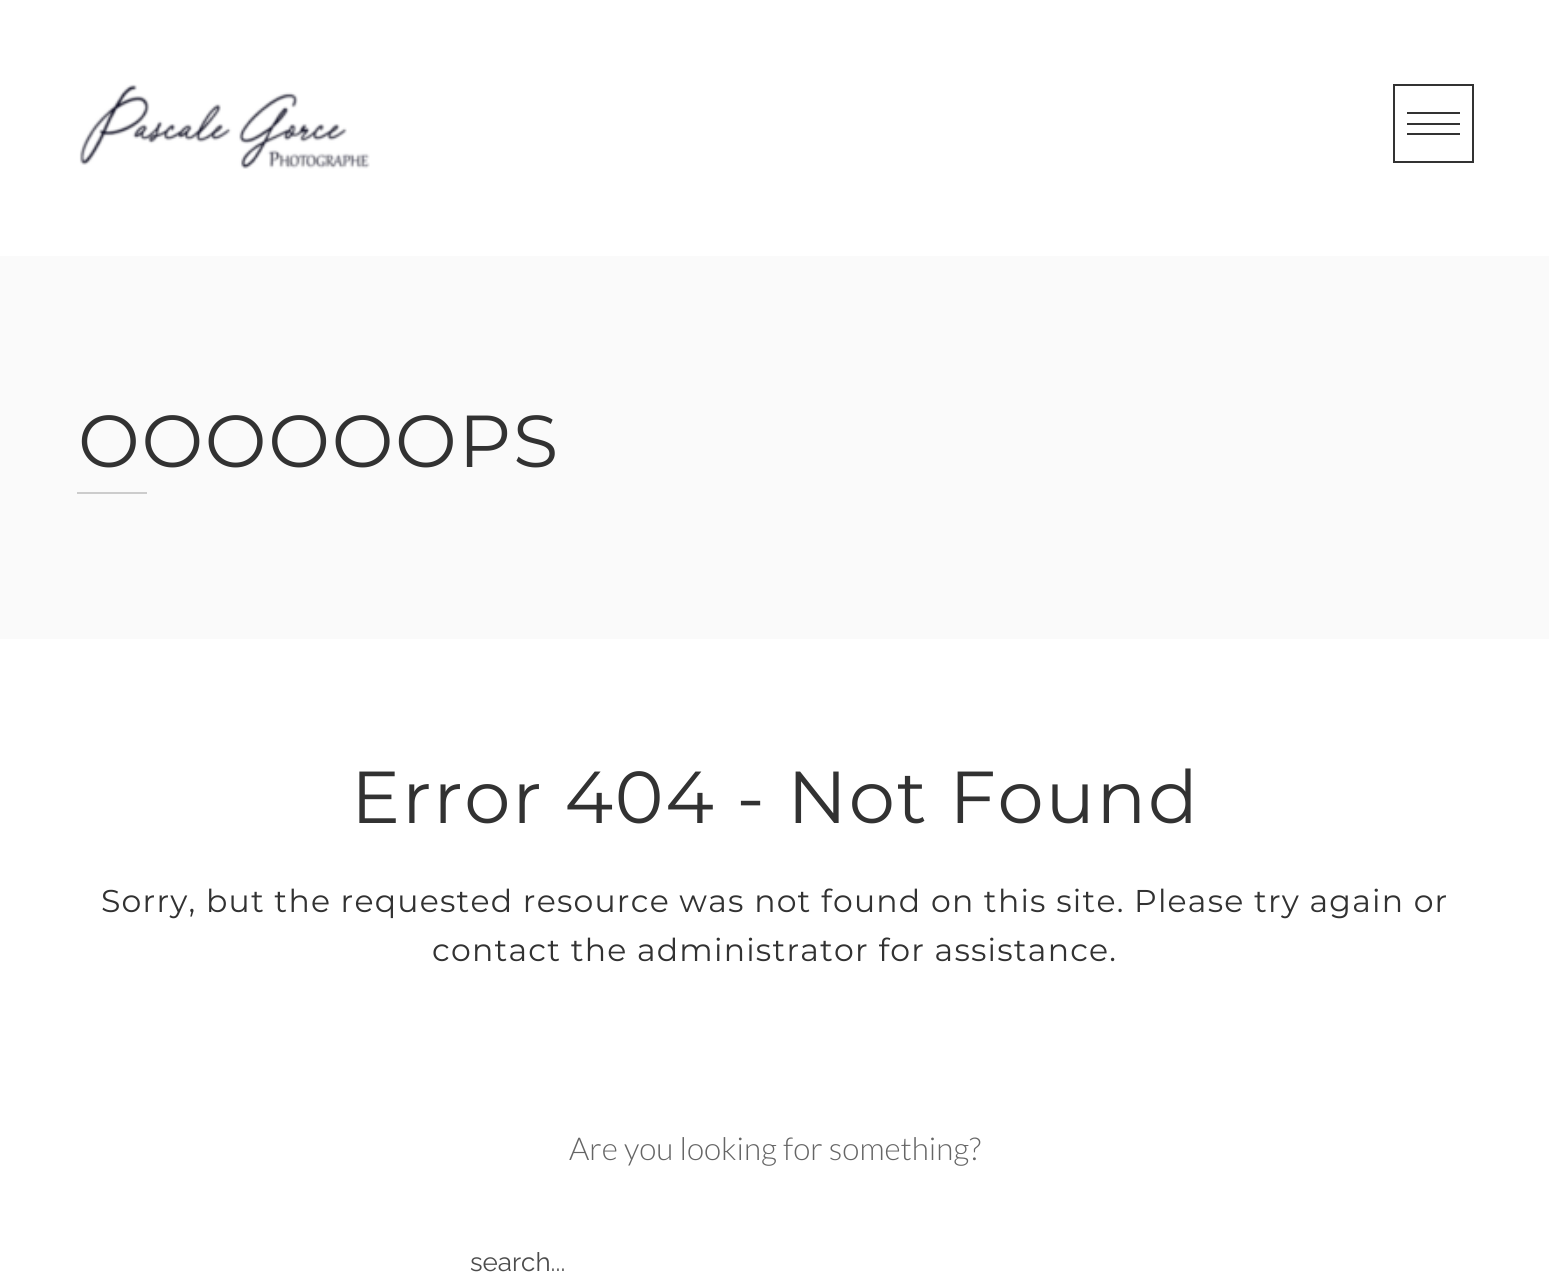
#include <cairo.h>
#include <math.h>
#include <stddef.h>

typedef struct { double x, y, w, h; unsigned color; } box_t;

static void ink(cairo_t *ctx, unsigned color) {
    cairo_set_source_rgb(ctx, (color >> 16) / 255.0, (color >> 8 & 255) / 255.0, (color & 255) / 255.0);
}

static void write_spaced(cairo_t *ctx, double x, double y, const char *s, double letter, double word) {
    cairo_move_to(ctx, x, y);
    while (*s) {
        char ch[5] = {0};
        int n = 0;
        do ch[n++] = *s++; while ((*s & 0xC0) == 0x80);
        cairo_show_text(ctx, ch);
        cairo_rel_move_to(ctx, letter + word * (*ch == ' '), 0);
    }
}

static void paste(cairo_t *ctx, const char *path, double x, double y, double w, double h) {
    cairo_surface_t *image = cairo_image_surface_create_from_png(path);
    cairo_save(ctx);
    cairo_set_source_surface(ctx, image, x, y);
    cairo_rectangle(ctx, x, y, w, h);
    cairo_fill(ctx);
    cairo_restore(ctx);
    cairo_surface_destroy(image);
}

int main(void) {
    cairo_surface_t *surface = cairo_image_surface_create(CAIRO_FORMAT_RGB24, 1549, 1281);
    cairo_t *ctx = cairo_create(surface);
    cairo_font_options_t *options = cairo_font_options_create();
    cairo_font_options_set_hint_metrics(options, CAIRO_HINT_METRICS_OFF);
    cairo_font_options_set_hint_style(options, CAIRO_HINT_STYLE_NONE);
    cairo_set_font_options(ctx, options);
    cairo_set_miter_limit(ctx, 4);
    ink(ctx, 0xFFFFFF);
    cairo_paint(ctx);
    paste(ctx, "media/1.png", 79, 84, 291, 85);
    cairo_rectangle(ctx, 1394, 85, 79, 77);
    ink(ctx, 0x323232);
    cairo_stroke(ctx);
    {
        static const box_t items[] = {
            {1407, 112, 53, 2, 0x323232},
            {1407, 123, 53, 2, 0x323232},
            {1407, 133, 53, 2, 0x323232},
            {0, 256, 1549, 383, 0xFAFAFA},
        };
        for (size_t i = 0; i < sizeof items / sizeof *items; i++) {
            ink(ctx, items[i].color);
            cairo_rectangle(ctx, items[i].x, items[i].y, items[i].w, items[i].h);
            cairo_fill(ctx);
        }
    }
    cairo_select_font_face(ctx, "Montserrat", CAIRO_FONT_SLANT_NORMAL, CAIRO_FONT_WEIGHT_NORMAL);
    cairo_set_font_size(ctx, 73.5);
    ink(ctx, 0x323232);
    write_spaced(ctx, 78, 467, "OOOOOOPS", 1.75, 0);
    ink(ctx, 0xCCCCCC);
    cairo_rectangle(ctx, 77, 492, 70, 2);
    cairo_fill(ctx);
    ink(ctx, 0x323232);
    write_spaced(ctx, 351, 823, "Error 404 - Not Found", 1.75, 0);
    cairo_set_font_size(ctx, 31.5);
    write_spaced(ctx, 101, 912, "Sorry, but the requested resource was not found on this site. Please try again or", 1.22, 0);
    write_spaced(ctx, 432, 961, "contact the administrator for assistance.", 1.22, 0);
    cairo_select_font_face(ctx, "Lato Light", CAIRO_FONT_SLANT_NORMAL, CAIRO_FONT_WEIGHT_NORMAL);
    ink(ctx, 0x656565);
    cairo_move_to(ctx, 569, 1160);
    cairo_show_text(ctx, "Are you looking for something?");
    cairo_select_font_face(ctx, "Raleway", CAIRO_FONT_SLANT_NORMAL, CAIRO_FONT_WEIGHT_NORMAL);
    cairo_set_font_size(ctx, 26);
    ink(ctx, 0x4C4C4C);
    cairo_move_to(ctx, 470, 1271);
    cairo_show_text(ctx, "search...");
    cairo_surface_write_to_png(surface, "image.png");
    cairo_font_options_destroy(options);
    cairo_destroy(ctx);
    cairo_surface_destroy(surface);
    return 0;
}
